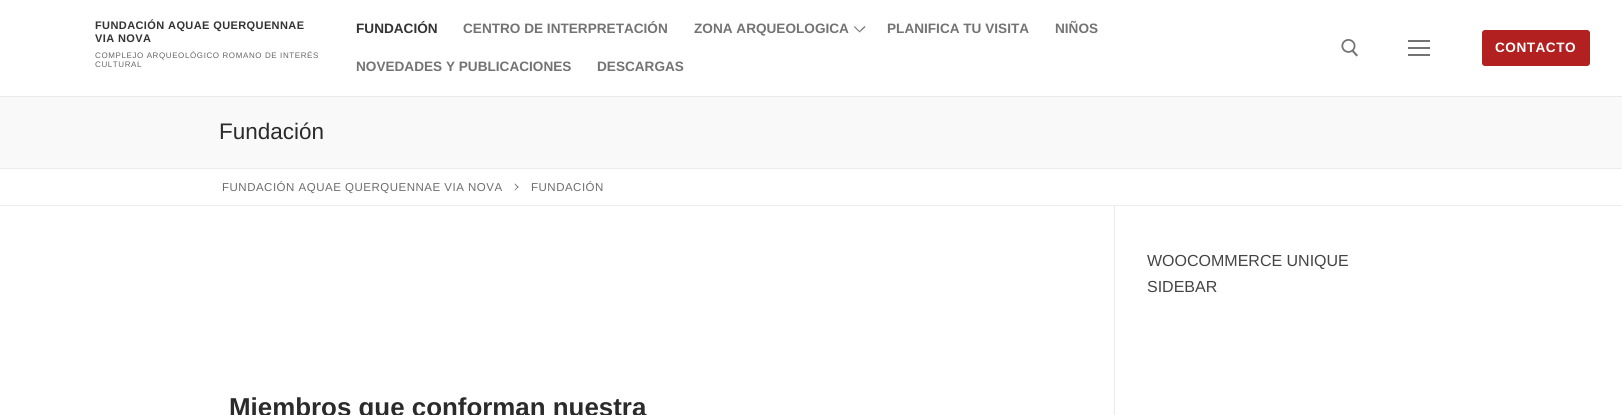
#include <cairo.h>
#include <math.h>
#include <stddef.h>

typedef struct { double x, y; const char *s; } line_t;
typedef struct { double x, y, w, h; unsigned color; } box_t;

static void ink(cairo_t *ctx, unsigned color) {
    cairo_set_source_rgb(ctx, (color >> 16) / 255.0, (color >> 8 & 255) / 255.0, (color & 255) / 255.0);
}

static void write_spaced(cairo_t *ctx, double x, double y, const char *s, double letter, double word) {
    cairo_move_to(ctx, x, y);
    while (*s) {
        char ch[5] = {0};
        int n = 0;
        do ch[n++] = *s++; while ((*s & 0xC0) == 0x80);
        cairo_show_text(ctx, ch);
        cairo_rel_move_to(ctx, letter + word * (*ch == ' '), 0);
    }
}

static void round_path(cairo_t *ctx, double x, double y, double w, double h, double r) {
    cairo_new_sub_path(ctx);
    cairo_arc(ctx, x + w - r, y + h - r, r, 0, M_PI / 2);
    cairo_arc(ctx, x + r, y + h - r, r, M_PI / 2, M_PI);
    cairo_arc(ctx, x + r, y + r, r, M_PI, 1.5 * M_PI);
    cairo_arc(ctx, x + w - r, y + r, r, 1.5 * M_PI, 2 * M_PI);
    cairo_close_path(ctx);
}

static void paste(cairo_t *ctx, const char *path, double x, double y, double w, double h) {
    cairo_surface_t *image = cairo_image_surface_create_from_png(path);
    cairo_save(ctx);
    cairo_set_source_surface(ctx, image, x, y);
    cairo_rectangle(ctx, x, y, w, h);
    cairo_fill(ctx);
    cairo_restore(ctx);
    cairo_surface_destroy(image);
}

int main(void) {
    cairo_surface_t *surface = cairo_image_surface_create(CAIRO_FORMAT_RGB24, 1622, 415);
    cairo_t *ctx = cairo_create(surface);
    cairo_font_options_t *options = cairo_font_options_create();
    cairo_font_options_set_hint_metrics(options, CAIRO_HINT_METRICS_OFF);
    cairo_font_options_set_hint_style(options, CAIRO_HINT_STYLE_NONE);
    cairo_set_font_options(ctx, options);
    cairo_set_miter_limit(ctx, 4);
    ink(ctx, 0xFFFFFF);
    cairo_paint(ctx);
    ink(ctx, 0xEAEAEA);
    cairo_rectangle(ctx, 0, 96, 1622, 1);
    cairo_fill(ctx);
    cairo_select_font_face(ctx, "Liberation Sans", CAIRO_FONT_SLANT_NORMAL, CAIRO_FONT_WEIGHT_BOLD);
    cairo_set_font_size(ctx, 11);
    ink(ctx, 0x333333);
    write_spaced(ctx, 95, 29, "FUNDACIÓN AQUAE QUERQUENNAE", 0.4, 0);
    write_spaced(ctx, 95, 42, "VIA NOVA", 0.4, 0);
    cairo_select_font_face(ctx, "Liberation Sans", CAIRO_FONT_SLANT_NORMAL, CAIRO_FONT_WEIGHT_NORMAL);
    cairo_set_font_size(ctx, 8);
    ink(ctx, 0x666666);
    write_spaced(ctx, 95, 58, "COMPLEJO ARQUEOLÓGICO ROMANO DE INTERÉS", 0.6, 0);
    write_spaced(ctx, 95, 67, "CULTURAL", 0.6, 0);
    cairo_select_font_face(ctx, "Liberation Sans", CAIRO_FONT_SLANT_NORMAL, CAIRO_FONT_WEIGHT_BOLD);
    cairo_set_font_size(ctx, 13.6);
    ink(ctx, 0x333333);
    cairo_move_to(ctx, 356, 33);
    cairo_show_text(ctx, "FUNDACIÓN");
    ink(ctx, 0x737373);
    cairo_move_to(ctx, 463, 33);
    cairo_show_text(ctx, "CENTRO DE INTERPRETACIÓN");
    cairo_move_to(ctx, 694, 33);
    cairo_show_text(ctx, "ZONA ARQUEOLOGICA");
    cairo_new_path(ctx);
    cairo_move_to(ctx, 859.5, 32.5);
    cairo_line_to(ctx, 854, 27);
    cairo_line_to(ctx, 854.5, 26);
    cairo_line_to(ctx, 859.5, 31);
    cairo_close_path(ctx);
    cairo_fill(ctx);
    cairo_set_source_rgba(ctx, 0, 0, 0, 0.55);
    cairo_new_path(ctx);
    cairo_move_to(ctx, 865.5, 27);
    cairo_line_to(ctx, 859.5, 32.5);
    cairo_line_to(ctx, 859.5, 31);
    cairo_line_to(ctx, 864.5, 26);
    cairo_close_path(ctx);
    cairo_fill(ctx);
    ink(ctx, 0x737373);
    {
        static const line_t items[] = {
            {887, 33, "PLANIFICA TU VISITA"},
            {1055, 33, "NIÑOS"},
            {356, 71, "NOVEDADES Y PUBLICACIONES"},
            {597, 71, "DESCARGAS"},
        };
        for (size_t i = 0; i < sizeof items / sizeof *items; i++) {
            cairo_move_to(ctx, items[i].x, items[i].y);
            cairo_show_text(ctx, items[i].s);
        }
    }
    paste(ctx, "media/1.png", 1341, 39, 17, 18);
    {
        static const box_t items[] = {
            {1408, 47, 22, 2, 0x737373},
            {1408, 40, 22, 2, 0x737373},
            {1408, 54, 22, 2, 0x737373},
        };
        for (size_t i = 0; i < sizeof items / sizeof *items; i++) {
            ink(ctx, items[i].color);
            cairo_rectangle(ctx, items[i].x, items[i].y, items[i].w, items[i].h);
            cairo_fill(ctx);
        }
    }
    ink(ctx, 0xB22020);
    round_path(ctx, 1482, 30, 108, 36, 3);
    cairo_fill(ctx);
    ink(ctx, 0xFFFFFF);
    write_spaced(ctx, 1495, 52, "CONTACTO", 0.5, 0);
    ink(ctx, 0xF9F9F9);
    cairo_rectangle(ctx, 0, 97, 1622, 71);
    cairo_fill(ctx);
    ink(ctx, 0xEAECEE);
    cairo_rectangle(ctx, 0, 168, 1622, 1);
    cairo_fill(ctx);
    cairo_select_font_face(ctx, "Liberation Sans", CAIRO_FONT_SLANT_NORMAL, CAIRO_FONT_WEIGHT_NORMAL);
    cairo_set_font_size(ctx, 22.5);
    ink(ctx, 0x2B2B2B);
    cairo_move_to(ctx, 219, 139);
    cairo_show_text(ctx, "Fundación");
    ink(ctx, 0xEAECEE);
    cairo_rectangle(ctx, 0, 205, 1622, 1);
    cairo_fill(ctx);
    cairo_set_font_size(ctx, 11.5);
    ink(ctx, 0x6D6D6D);
    write_spaced(ctx, 222, 191, "FUNDACIÓN AQUAE QUERQUENNAE VIA NOVA", 0.5, 0);
    cairo_new_path(ctx);
    cairo_move_to(ctx, 518.5, 187);
    cairo_line_to(ctx, 515, 190.5);
    cairo_line_to(ctx, 514.5, 190);
    cairo_line_to(ctx, 518, 186.5);
    cairo_close_path(ctx);
    cairo_fill(ctx);
    cairo_new_path(ctx);
    cairo_move_to(ctx, 518.5, 187);
    cairo_line_to(ctx, 518, 188);
    cairo_line_to(ctx, 514.5, 184);
    cairo_line_to(ctx, 515, 183.5);
    cairo_close_path(ctx);
    cairo_fill(ctx);
    write_spaced(ctx, 531, 191, "FUNDACIÓN", 0.5, 0);
    cairo_set_font_size(ctx, 16);
    ink(ctx, 0x444444);
    cairo_move_to(ctx, 1147, 266);
    cairo_show_text(ctx, "WOOCOMMERCE UNIQUE");
    cairo_move_to(ctx, 1147, 292);
    cairo_show_text(ctx, "SIDEBAR");
    ink(ctx, 0xEAECEE);
    cairo_rectangle(ctx, 1114, 206, 1, 209);
    cairo_fill(ctx);
    cairo_select_font_face(ctx, "Liberation Sans", CAIRO_FONT_SLANT_NORMAL, CAIRO_FONT_WEIGHT_BOLD);
    cairo_set_font_size(ctx, 25.9);
    ink(ctx, 0x2B2B2B);
    cairo_move_to(ctx, 229, 416);
    cairo_show_text(ctx, "Miembros que conforman nuestra");
    cairo_surface_write_to_png(surface, "image.png");
    cairo_font_options_destroy(options);
    cairo_destroy(ctx);
    cairo_surface_destroy(surface);
    return 0;
}
